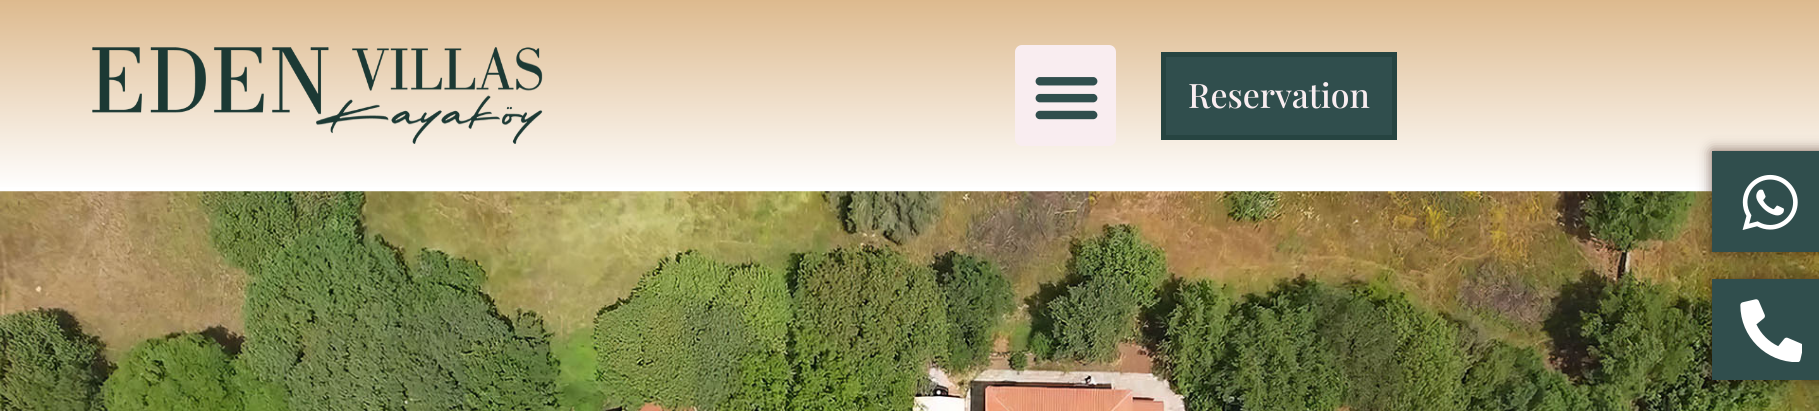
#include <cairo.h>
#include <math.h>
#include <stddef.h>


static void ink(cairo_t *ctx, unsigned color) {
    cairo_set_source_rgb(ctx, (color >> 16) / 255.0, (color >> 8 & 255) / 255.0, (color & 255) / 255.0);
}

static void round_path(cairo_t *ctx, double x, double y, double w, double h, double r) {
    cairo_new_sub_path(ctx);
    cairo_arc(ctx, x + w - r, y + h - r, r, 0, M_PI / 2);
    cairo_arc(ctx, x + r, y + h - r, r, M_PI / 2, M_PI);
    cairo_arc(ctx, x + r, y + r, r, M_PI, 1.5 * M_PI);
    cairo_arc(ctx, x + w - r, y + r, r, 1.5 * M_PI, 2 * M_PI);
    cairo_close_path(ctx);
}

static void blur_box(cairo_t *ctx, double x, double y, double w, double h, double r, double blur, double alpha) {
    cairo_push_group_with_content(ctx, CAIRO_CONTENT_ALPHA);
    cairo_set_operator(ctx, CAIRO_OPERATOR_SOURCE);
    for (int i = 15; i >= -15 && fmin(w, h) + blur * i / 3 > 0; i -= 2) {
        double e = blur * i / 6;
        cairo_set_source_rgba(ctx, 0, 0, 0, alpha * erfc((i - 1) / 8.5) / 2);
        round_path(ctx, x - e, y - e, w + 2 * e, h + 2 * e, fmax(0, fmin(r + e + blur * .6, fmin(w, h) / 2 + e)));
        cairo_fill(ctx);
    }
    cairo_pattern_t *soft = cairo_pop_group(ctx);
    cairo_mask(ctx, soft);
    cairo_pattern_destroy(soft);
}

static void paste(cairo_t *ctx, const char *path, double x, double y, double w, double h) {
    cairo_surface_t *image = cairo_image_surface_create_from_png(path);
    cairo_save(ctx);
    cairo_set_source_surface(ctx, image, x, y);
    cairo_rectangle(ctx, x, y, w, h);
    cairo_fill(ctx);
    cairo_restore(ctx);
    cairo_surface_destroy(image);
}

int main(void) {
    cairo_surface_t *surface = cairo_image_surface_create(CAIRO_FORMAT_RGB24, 1819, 411);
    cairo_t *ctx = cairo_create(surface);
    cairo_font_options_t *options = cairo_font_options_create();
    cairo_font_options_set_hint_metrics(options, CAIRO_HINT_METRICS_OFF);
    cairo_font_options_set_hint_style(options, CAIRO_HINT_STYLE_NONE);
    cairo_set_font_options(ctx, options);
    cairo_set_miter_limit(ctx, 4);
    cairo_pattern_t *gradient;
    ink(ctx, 0xFFFFFF);
    cairo_paint(ctx);
    gradient = cairo_pattern_create_linear(910, 0, 910, 191);
    cairo_pattern_add_color_stop_rgba(gradient, 0, 0.867, 0.729, 0.557, 1);
    cairo_pattern_add_color_stop_rgba(gradient, 1, 1, 1, 1, 1);
    cairo_set_source(ctx, gradient);
    cairo_pattern_destroy(gradient);
    cairo_rectangle(ctx, 0, 0, 1819, 187);
    cairo_fill(ctx);
    paste(ctx, "media/1.png", 92, 47, 451, 97);
    ink(ctx, 0xF9EDF0);
    round_path(ctx, 1015, 45, 101, 101, 7);
    cairo_fill(ctx);
    paste(ctx, "media/2.png", 1035, 77, 63, 43);
    ink(ctx, 0x304E4D);
    cairo_rectangle(ctx, 1163.5, 54.5, 231, 83);
    cairo_fill_preserve(ctx);
    ink(ctx, 0x264441);
    cairo_set_line_width(ctx, 5);
    cairo_stroke(ctx);
    cairo_select_font_face(ctx, "Playfair Display Medium", CAIRO_FONT_SLANT_NORMAL, CAIRO_FONT_WEIGHT_NORMAL);
    cairo_set_font_size(ctx, 33.75);
    ink(ctx, 0xF9EDF0);
    cairo_move_to(ctx, 1188, 108);
    cairo_show_text(ctx, "Reservation");
    paste(ctx, "media/5.png", 0, 191, 1819, 220);
    ink(ctx, 0x3C1A0D);
    blur_box(ctx, 1712, 151, 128, 101, 0, 7, 0.65);
    ink(ctx, 0x304E4D);
    cairo_rectangle(ctx, 1712, 151, 107, 101);
    cairo_fill(ctx);
    paste(ctx, "media/3.png", 1742, 174, 56, 56);
    ink(ctx, 0x3C1A0D);
    blur_box(ctx, 1712, 279, 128, 101, 0, 7, 0.65);
    ink(ctx, 0x304E4D);
    cairo_rectangle(ctx, 1712, 279, 107, 101);
    cairo_fill(ctx);
    paste(ctx, "media/4.png", 1740, 299, 62, 63);
    cairo_surface_write_to_png(surface, "image.png");
    cairo_font_options_destroy(options);
    cairo_destroy(ctx);
    cairo_surface_destroy(surface);
    return 0;
}
